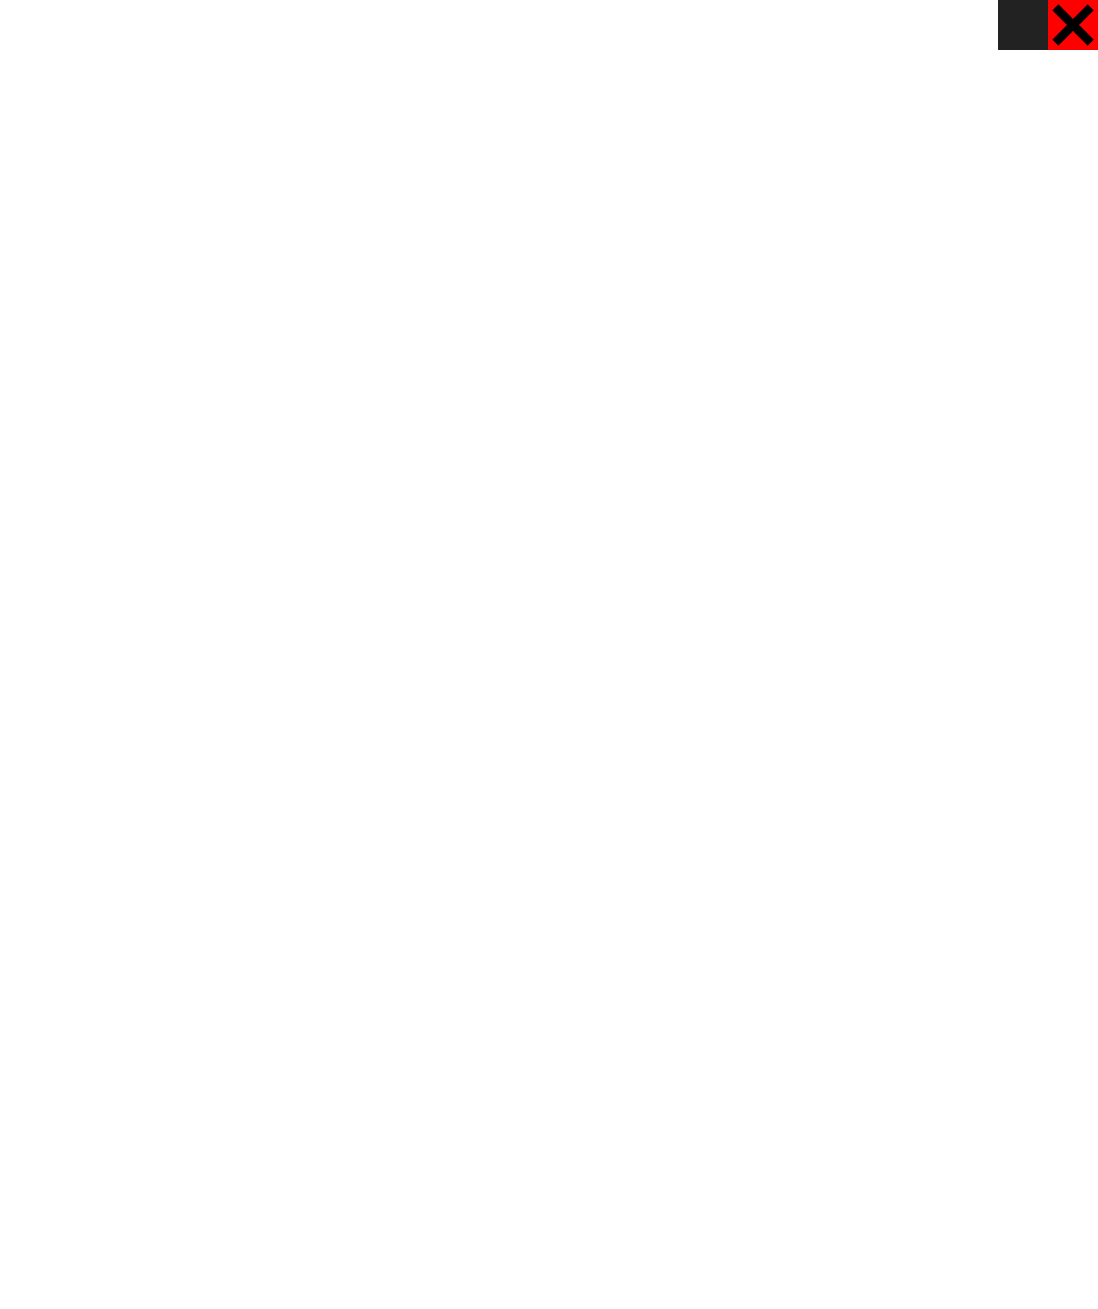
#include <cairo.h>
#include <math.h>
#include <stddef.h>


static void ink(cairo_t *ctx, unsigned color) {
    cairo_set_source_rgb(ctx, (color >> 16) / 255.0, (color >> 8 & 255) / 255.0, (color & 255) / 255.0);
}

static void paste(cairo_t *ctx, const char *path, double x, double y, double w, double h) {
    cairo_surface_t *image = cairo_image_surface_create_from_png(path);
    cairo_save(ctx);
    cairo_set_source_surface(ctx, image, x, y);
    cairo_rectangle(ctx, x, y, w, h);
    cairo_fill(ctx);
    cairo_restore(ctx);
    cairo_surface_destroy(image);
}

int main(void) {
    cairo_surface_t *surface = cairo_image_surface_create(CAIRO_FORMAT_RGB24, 1098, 1309);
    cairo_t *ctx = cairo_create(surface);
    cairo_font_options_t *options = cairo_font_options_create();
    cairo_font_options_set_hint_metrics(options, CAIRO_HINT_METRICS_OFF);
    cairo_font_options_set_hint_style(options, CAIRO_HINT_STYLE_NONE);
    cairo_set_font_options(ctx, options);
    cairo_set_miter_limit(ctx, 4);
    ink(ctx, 0xFFFFFF);
    cairo_paint(ctx);
    ink(ctx, 0x222222);
    cairo_rectangle(ctx, 998, 0, 50, 50);
    cairo_fill(ctx);
    paste(ctx, "media/1.png", 1048, 0, 50, 50);
    cairo_surface_write_to_png(surface, "image.png");
    cairo_font_options_destroy(options);
    cairo_destroy(ctx);
    cairo_surface_destroy(surface);
    return 0;
}
